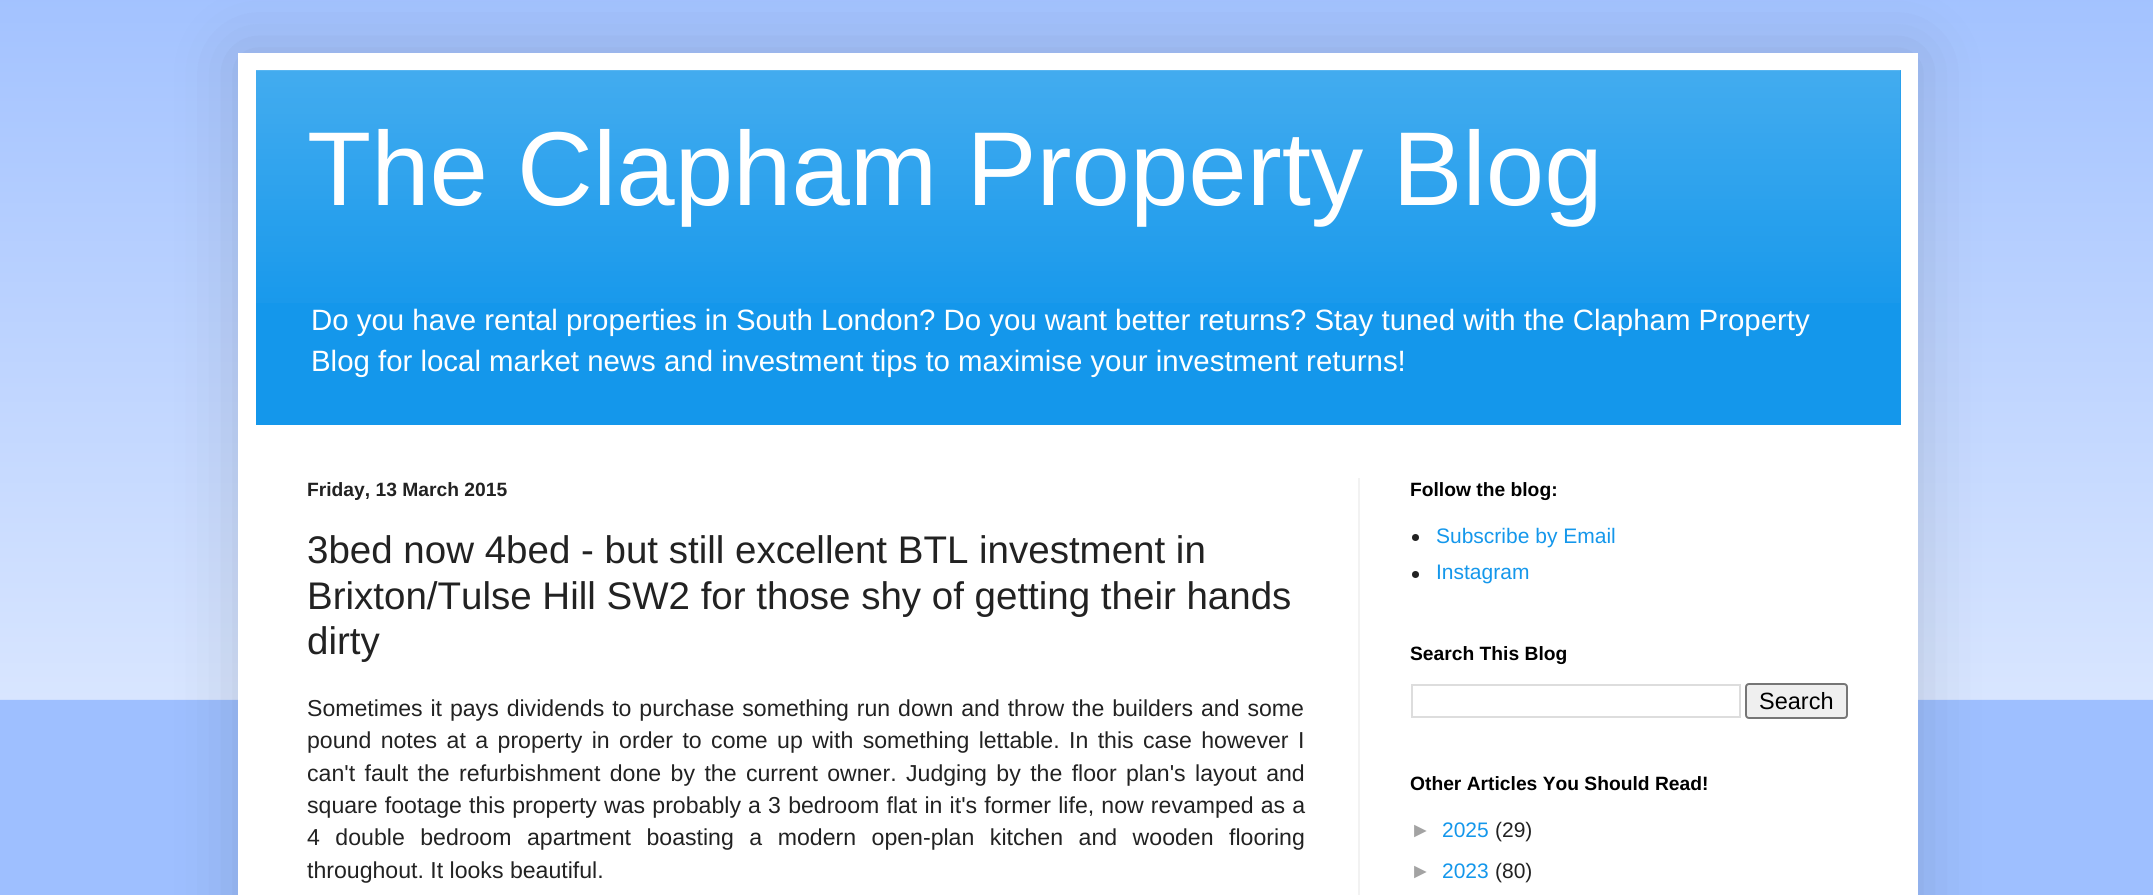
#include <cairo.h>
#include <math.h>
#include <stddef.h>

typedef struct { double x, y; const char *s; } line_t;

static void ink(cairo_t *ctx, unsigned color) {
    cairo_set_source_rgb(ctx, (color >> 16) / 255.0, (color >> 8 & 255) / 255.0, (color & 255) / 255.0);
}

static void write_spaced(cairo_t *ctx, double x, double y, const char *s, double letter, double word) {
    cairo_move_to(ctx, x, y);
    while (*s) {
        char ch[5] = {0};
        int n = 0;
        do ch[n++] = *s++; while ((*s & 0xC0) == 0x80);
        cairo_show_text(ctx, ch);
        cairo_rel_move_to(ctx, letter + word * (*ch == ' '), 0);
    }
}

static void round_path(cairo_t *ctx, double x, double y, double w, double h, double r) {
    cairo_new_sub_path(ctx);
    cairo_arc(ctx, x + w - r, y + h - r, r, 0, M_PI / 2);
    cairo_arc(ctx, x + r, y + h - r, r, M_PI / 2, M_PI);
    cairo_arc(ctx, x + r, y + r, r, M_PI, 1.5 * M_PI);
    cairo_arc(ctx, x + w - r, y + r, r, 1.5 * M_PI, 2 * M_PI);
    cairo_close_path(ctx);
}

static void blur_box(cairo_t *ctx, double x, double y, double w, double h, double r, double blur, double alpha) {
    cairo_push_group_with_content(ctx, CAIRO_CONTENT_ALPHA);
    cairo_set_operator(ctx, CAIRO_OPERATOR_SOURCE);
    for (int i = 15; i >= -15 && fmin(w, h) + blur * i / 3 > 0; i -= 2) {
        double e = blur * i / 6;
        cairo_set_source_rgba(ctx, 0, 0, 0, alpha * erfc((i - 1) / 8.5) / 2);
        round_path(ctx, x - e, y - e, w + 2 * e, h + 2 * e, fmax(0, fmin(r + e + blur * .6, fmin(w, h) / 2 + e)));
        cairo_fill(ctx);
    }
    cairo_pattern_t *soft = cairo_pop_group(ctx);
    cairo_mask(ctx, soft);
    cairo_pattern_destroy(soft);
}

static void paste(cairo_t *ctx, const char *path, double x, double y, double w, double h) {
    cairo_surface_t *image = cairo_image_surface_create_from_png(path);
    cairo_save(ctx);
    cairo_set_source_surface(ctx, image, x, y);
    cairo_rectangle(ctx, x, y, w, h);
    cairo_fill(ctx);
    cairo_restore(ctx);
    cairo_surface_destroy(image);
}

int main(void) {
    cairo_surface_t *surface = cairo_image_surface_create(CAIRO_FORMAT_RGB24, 2153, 895);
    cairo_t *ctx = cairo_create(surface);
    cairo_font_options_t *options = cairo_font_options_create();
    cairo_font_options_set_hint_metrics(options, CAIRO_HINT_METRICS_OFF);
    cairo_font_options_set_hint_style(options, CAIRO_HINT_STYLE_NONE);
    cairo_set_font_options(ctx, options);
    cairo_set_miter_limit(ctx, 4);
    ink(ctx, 0x9EBFFF);
    cairo_paint(ctx);
    paste(ctx, "media/1.png", 0, 0, 2153, 700);
    ink(ctx, 0x000000);
    blur_box(ctx, 238, 53, 1680, 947, 0, 35, 0.15);
    ink(ctx, 0xFFFFFF);
    cairo_rectangle(ctx, 238, 53, 1680, 842);
    cairo_fill(ctx);
    ink(ctx, 0x1497EB);
    cairo_rectangle(ctx, 256, 70, 1645, 355);
    cairo_fill(ctx);
    paste(ctx, "media/2.png", 256, 70, 1645, 233);
    cairo_select_font_face(ctx, "Liberation Sans", CAIRO_FONT_SLANT_NORMAL, CAIRO_FONT_WEIGHT_NORMAL);
    cairo_set_font_size(ctx, 105);
    ink(ctx, 0xFFFFFF);
    cairo_move_to(ctx, 307, 205);
    cairo_show_text(ctx, "The Clapham Property Blog");
    cairo_set_font_size(ctx, 29.4);
    cairo_move_to(ctx, 311, 330);
    cairo_show_text(ctx, "Do you have rental properties in South London? Do you want better returns? Stay tuned with the Clapham Property");
    cairo_move_to(ctx, 311, 371);
    cairo_show_text(ctx, "Blog for local market news and investment tips to maximise your investment returns!");
    ink(ctx, 0xF2F2F2);
    cairo_rectangle(ctx, 1358, 478, 2, 417);
    cairo_fill(ctx);
    cairo_select_font_face(ctx, "Liberation Sans", CAIRO_FONT_SLANT_NORMAL, CAIRO_FONT_WEIGHT_BOLD);
    cairo_set_font_size(ctx, 19.25);
    ink(ctx, 0x222222);
    cairo_move_to(ctx, 307, 496);
    cairo_show_text(ctx, "Friday, 13 March 2015");
    cairo_select_font_face(ctx, "Liberation Sans", CAIRO_FONT_SLANT_NORMAL, CAIRO_FONT_WEIGHT_NORMAL);
    cairo_set_font_size(ctx, 38.5);
    {
        static const line_t items[] = {
            {307, 563, "3bed now 4bed - but still excellent BTL investment in"},
            {307, 609, "Brixton/Tulse Hill SW2 for those shy of getting their hands"},
            {307, 654, "dirty"},
        };
        for (size_t i = 0; i < sizeof items / sizeof *items; i++) {
            cairo_move_to(ctx, items[i].x, items[i].y);
            cairo_show_text(ctx, items[i].s);
        }
    }
    cairo_set_font_size(ctx, 23.1);
    write_spaced(ctx, 307, 716, "Sometimes it pays dividends to purchase something run down and throw the builders and some", 0, 1.5);
    write_spaced(ctx, 307, 748, "pound notes at a property in order to come up with something lettable. In this case however I", 0, 3);
    write_spaced(ctx, 307, 781, "can't fault the refurbishment done by the current owner. Judging by the floor plan's layout and", 0, 3);
    write_spaced(ctx, 307, 813, "square footage this property was probably a 3 bedroom flat in it's former life, now revamped as a", 0, 0.75);
    write_spaced(ctx, 307, 845, "4 double bedroom apartment boasting a modern open-plan kitchen and wooden flooring", 0, 9.1);
    cairo_move_to(ctx, 307, 878);
    cairo_show_text(ctx, "throughout. It looks beautiful.");
    cairo_select_font_face(ctx, "Liberation Sans", CAIRO_FONT_SLANT_NORMAL, CAIRO_FONT_WEIGHT_BOLD);
    cairo_set_font_size(ctx, 19.25);
    ink(ctx, 0x000000);
    cairo_move_to(ctx, 1410, 496);
    cairo_show_text(ctx, "Follow the blog:");
    ink(ctx, 0x222222);
    cairo_new_path(ctx);
    cairo_arc(ctx, 1415.5, 537.5, 3.5, 0, 2 * M_PI);
    cairo_fill(ctx);
    cairo_select_font_face(ctx, "Liberation Sans", CAIRO_FONT_SLANT_NORMAL, CAIRO_FONT_WEIGHT_NORMAL);
    cairo_set_font_size(ctx, 21);
    ink(ctx, 0x1497EB);
    cairo_move_to(ctx, 1436, 543);
    cairo_show_text(ctx, "Subscribe by Email");
    ink(ctx, 0x222222);
    cairo_new_path(ctx);
    cairo_arc(ctx, 1415.5, 574.5, 3.5, 0, 2 * M_PI);
    cairo_fill(ctx);
    ink(ctx, 0x1497EB);
    cairo_move_to(ctx, 1436, 579);
    cairo_show_text(ctx, "Instagram");
    cairo_select_font_face(ctx, "Liberation Sans", CAIRO_FONT_SLANT_NORMAL, CAIRO_FONT_WEIGHT_BOLD);
    cairo_set_font_size(ctx, 19.25);
    ink(ctx, 0x000000);
    cairo_move_to(ctx, 1410, 660);
    cairo_show_text(ctx, "Search This Blog");
    cairo_rectangle(ctx, 1412, 685, 328, 32);
    ink(ctx, 0xDDDDDD);
    cairo_stroke(ctx);
    ink(ctx, 0xEFEFEF);
    round_path(ctx, 1746, 684, 101, 34, 3);
    cairo_fill_preserve(ctx);
    ink(ctx, 0x767676);
    cairo_stroke(ctx);
    cairo_select_font_face(ctx, "Liberation Sans", CAIRO_FONT_SLANT_NORMAL, CAIRO_FONT_WEIGHT_NORMAL);
    cairo_set_font_size(ctx, 23.5);
    ink(ctx, 0x000000);
    cairo_move_to(ctx, 1759, 709);
    cairo_show_text(ctx, "Search");
    cairo_select_font_face(ctx, "Liberation Sans", CAIRO_FONT_SLANT_NORMAL, CAIRO_FONT_WEIGHT_BOLD);
    cairo_set_font_size(ctx, 19.25);
    cairo_move_to(ctx, 1410, 790);
    cairo_show_text(ctx, "Other Articles You Should Read!");
    cairo_select_font_face(ctx, "Liberation Sans", CAIRO_FONT_SLANT_NORMAL, CAIRO_FONT_WEIGHT_NORMAL);
    cairo_set_font_size(ctx, 21);
    ink(ctx, 0xA3A3A3);
    cairo_move_to(ctx, 1410, 837);
    cairo_show_text(ctx, "►");
    ink(ctx, 0x1497EB);
    cairo_move_to(ctx, 1442, 837);
    cairo_show_text(ctx, "2025");
    ink(ctx, 0x222222);
    cairo_move_to(ctx, 1495, 837);
    cairo_show_text(ctx, "(29)");
    ink(ctx, 0xA3A3A3);
    cairo_move_to(ctx, 1410, 878);
    cairo_show_text(ctx, "►");
    ink(ctx, 0x1497EB);
    cairo_move_to(ctx, 1442, 878);
    cairo_show_text(ctx, "2023");
    ink(ctx, 0x222222);
    cairo_move_to(ctx, 1495, 878);
    cairo_show_text(ctx, "(80)");
    cairo_surface_write_to_png(surface, "image.png");
    cairo_font_options_destroy(options);
    cairo_destroy(ctx);
    cairo_surface_destroy(surface);
    return 0;
}
